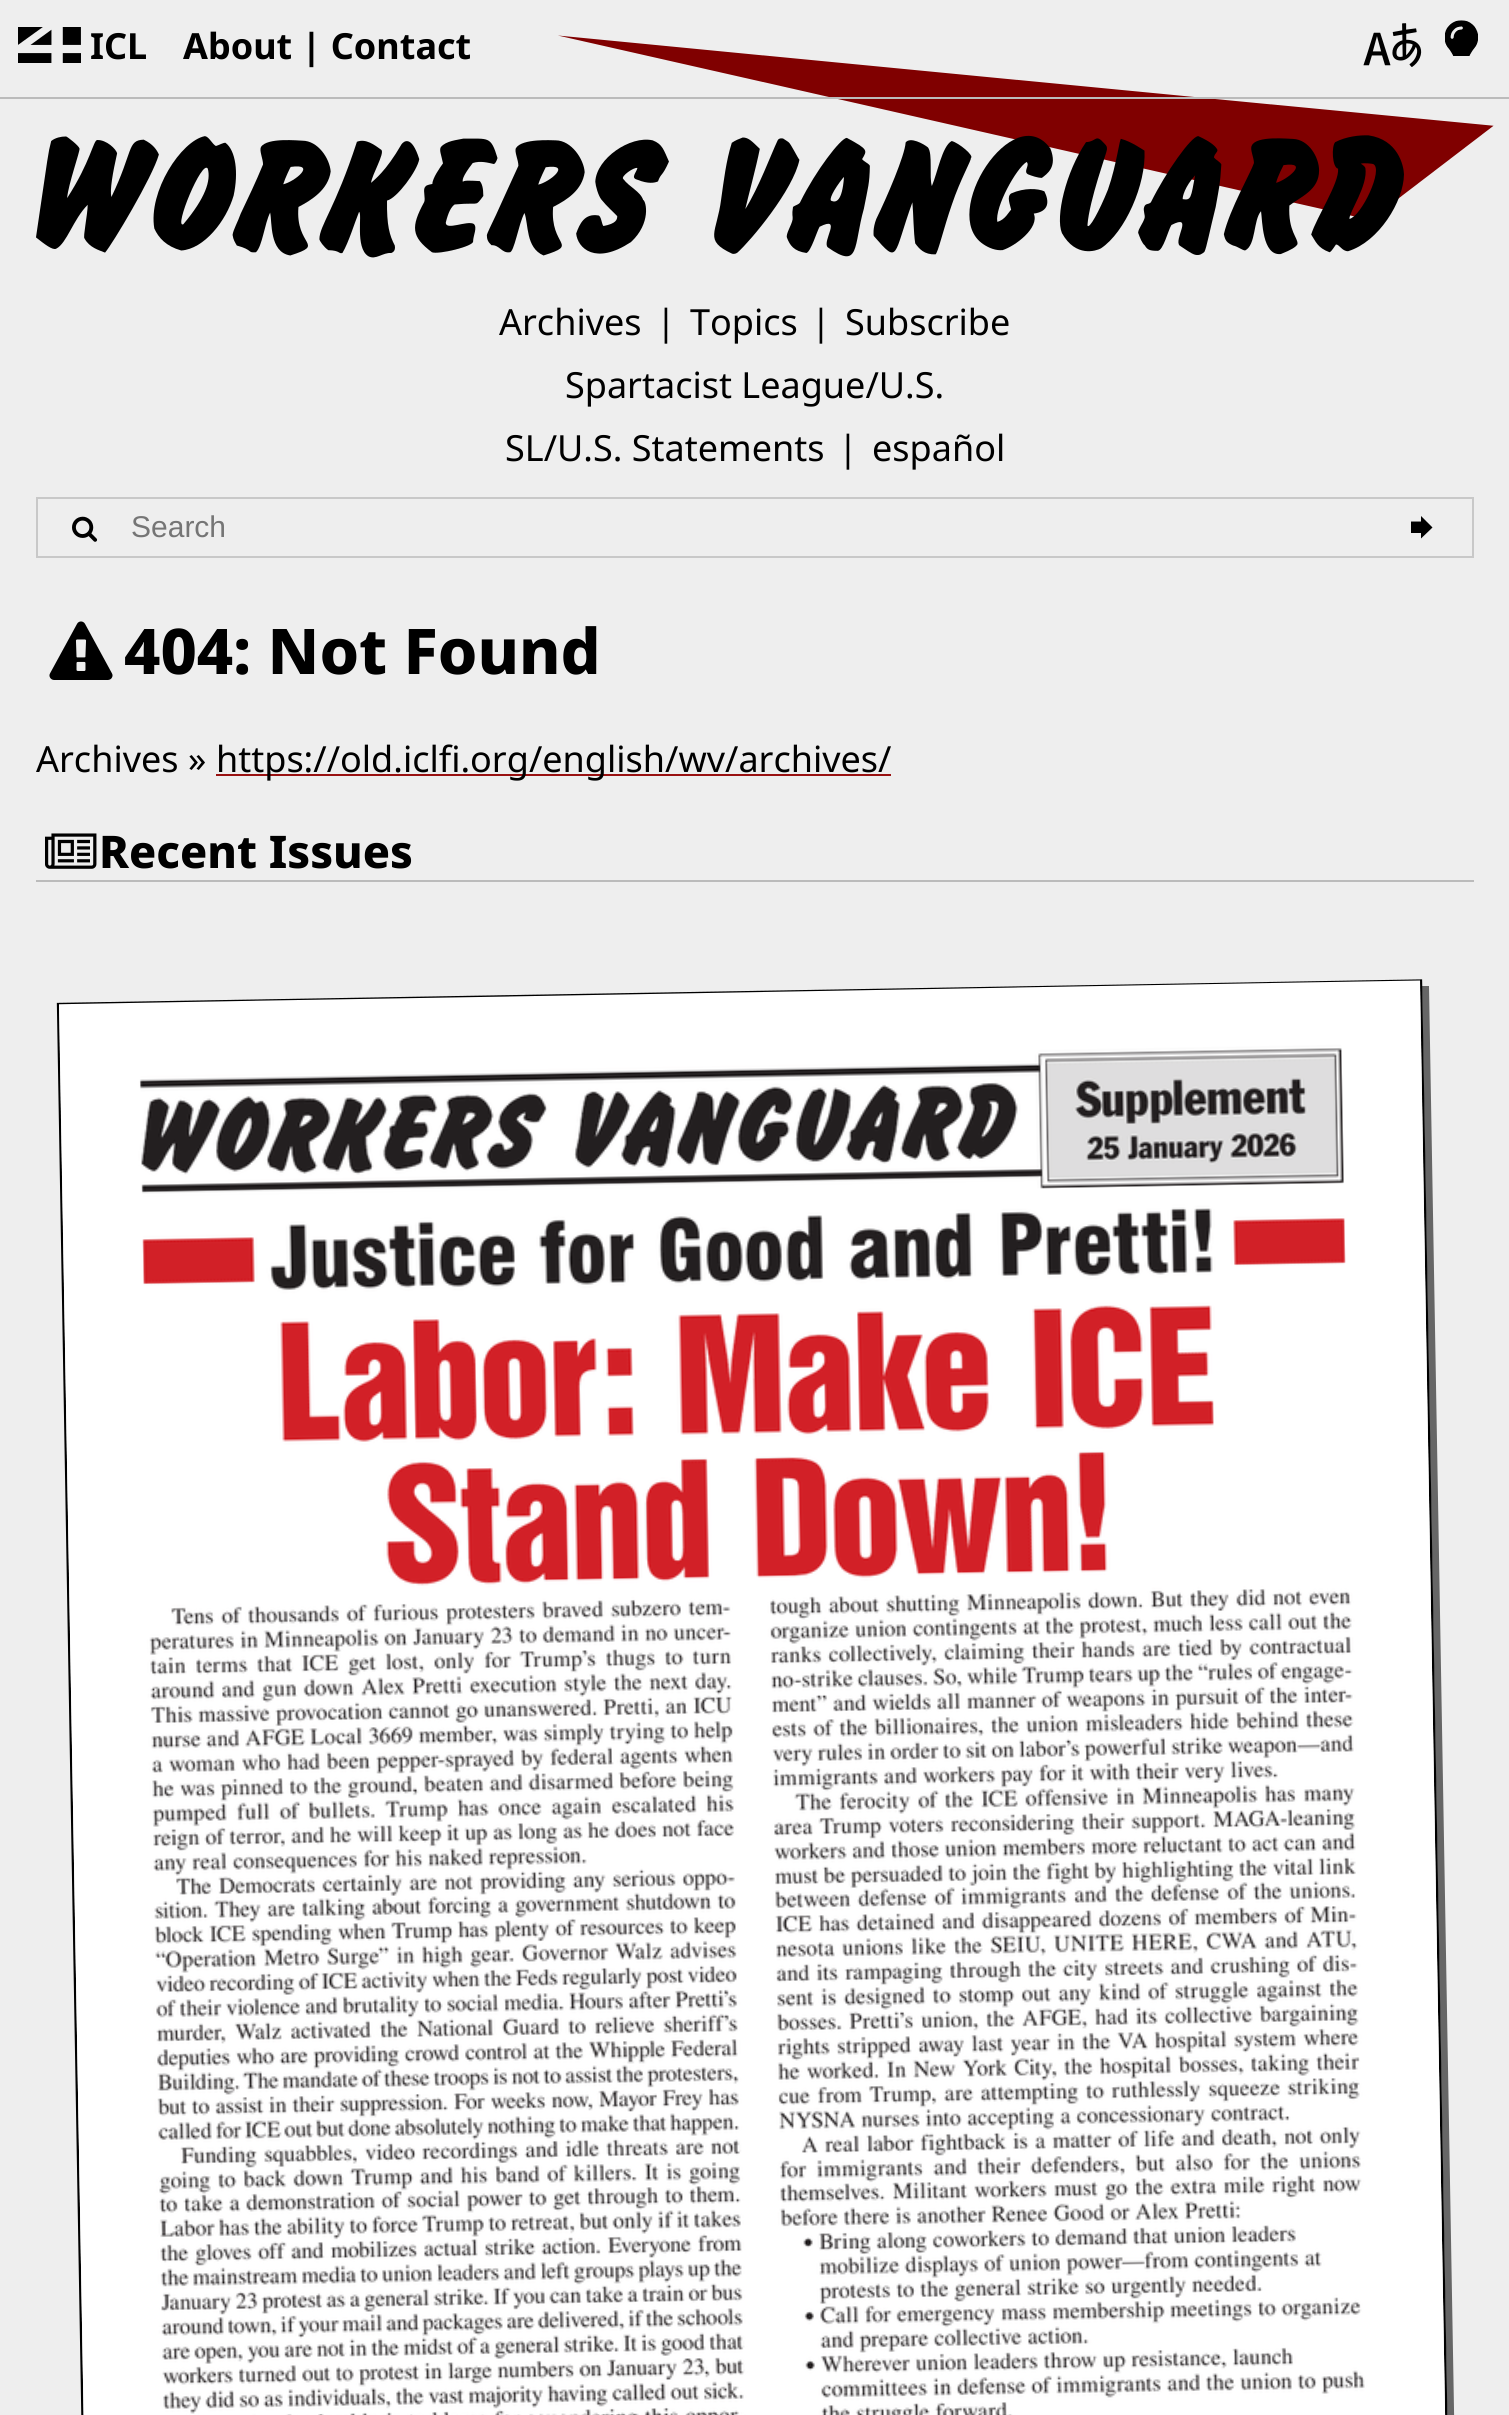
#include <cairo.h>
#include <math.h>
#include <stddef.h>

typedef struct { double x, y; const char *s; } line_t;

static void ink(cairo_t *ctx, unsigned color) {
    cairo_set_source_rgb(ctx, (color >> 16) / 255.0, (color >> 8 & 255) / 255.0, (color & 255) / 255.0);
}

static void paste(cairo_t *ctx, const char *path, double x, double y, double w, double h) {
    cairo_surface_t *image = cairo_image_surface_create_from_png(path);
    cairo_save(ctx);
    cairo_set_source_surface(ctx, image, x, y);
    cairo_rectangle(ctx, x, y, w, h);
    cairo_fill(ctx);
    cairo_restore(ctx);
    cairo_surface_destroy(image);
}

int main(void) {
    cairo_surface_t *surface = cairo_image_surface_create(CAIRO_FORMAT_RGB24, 1509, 2415);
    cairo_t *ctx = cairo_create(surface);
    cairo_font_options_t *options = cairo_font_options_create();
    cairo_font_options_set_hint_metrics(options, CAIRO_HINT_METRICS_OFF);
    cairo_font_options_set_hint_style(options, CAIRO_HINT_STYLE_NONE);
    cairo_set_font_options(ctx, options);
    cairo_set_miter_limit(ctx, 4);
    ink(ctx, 0xEEEEEE);
    cairo_paint(ctx);
    paste(ctx, "media/1.png", 558, 35, 936, 182);
    ink(ctx, 0xBBBBBB);
    cairo_rectangle(ctx, 0, 97, 1509, 2);
    cairo_fill(ctx);
    paste(ctx, "media/2.png", 18, 27, 63, 36);
    cairo_select_font_face(ctx, "Noto Sans", CAIRO_FONT_SLANT_NORMAL, CAIRO_FONT_WEIGHT_BOLD);
    cairo_set_font_size(ctx, 36);
    ink(ctx, 0x000000);
    cairo_move_to(ctx, 90, 59);
    cairo_show_text(ctx, "ICL");
    cairo_move_to(ctx, 183, 59);
    cairo_show_text(ctx, "About | Contact");
    paste(ctx, "media/3.png", 1363, 23, 59, 44);
    paste(ctx, "media/4.png", 1445, 20, 33, 36);
    paste(ctx, "media/5.png", 36, 135, 1368, 123);
    cairo_select_font_face(ctx, "Noto Sans", CAIRO_FONT_SLANT_NORMAL, CAIRO_FONT_WEIGHT_NORMAL);
    {
        static const line_t items[] = {
            {499, 335, "Archives"},
            {656, 335, "|"},
            {690, 335, "Topics"},
            {811, 335, "|"},
            {845, 335, "Subscribe"},
            {565, 398, "Spartacist League/U.S."},
            {505, 461, "SL/U.S. Statements"},
            {838, 461, "|"},
            {872, 461, "español"},
        };
        for (size_t i = 0; i < sizeof items / sizeof *items; i++) {
            cairo_move_to(ctx, items[i].x, items[i].y);
            cairo_show_text(ctx, items[i].s);
        }
    }
    cairo_rectangle(ctx, 37, 498, 1436, 59);
    ink(ctx, 0xC8C8C8);
    cairo_stroke(ctx);
    paste(ctx, "media/6.png", 72, 516, 26, 26);
    cairo_select_font_face(ctx, "Liberation Sans", CAIRO_FONT_SLANT_NORMAL, CAIRO_FONT_WEIGHT_NORMAL);
    cairo_set_font_size(ctx, 30);
    ink(ctx, 0x757575);
    cairo_move_to(ctx, 131, 537);
    cairo_show_text(ctx, "Search");
    ink(ctx, 0x000000);
    cairo_new_path(ctx);
    cairo_move_to(ctx, 1421, 516);
    cairo_line_to(ctx, 1432.5, 527.5);
    cairo_line_to(ctx, 1421, 538.5);
    cairo_line_to(ctx, 1421, 533);
    cairo_line_to(ctx, 1411, 533);
    cairo_line_to(ctx, 1411, 521.5);
    cairo_line_to(ctx, 1421, 521.5);
    cairo_close_path(ctx);
    cairo_fill(ctx);
    paste(ctx, "media/7.png", 49, 621, 64, 59);
    cairo_select_font_face(ctx, "Noto Sans ExtraBold", CAIRO_FONT_SLANT_NORMAL, CAIRO_FONT_WEIGHT_NORMAL);
    cairo_set_font_size(ctx, 63);
    cairo_move_to(ctx, 124, 674);
    cairo_show_text(ctx, "404: Not Found");
    cairo_select_font_face(ctx, "Noto Sans", CAIRO_FONT_SLANT_NORMAL, CAIRO_FONT_WEIGHT_NORMAL);
    cairo_set_font_size(ctx, 36);
    cairo_move_to(ctx, 36, 772);
    cairo_show_text(ctx, "Archives »");
    ink(ctx, 0x991111);
    cairo_rectangle(ctx, 216, 774, 675, 2);
    cairo_fill(ctx);
    ink(ctx, 0x000000);
    cairo_move_to(ctx, 216, 772);
    cairo_show_text(ctx, "https://old.iclfi.org/english/wv/archives/");
    ink(ctx, 0xBBBBBB);
    cairo_rectangle(ctx, 36, 880, 1438, 2);
    cairo_fill(ctx);
    paste(ctx, "media/8.png", 45, 833, 52, 36);
    cairo_select_font_face(ctx, "Noto Sans ExtraBold", CAIRO_FONT_SLANT_NORMAL, CAIRO_FONT_WEIGHT_NORMAL);
    cairo_set_font_size(ctx, 45);
    ink(ctx, 0x000000);
    cairo_move_to(ctx, 99, 868);
    cairo_show_text(ctx, "Recent Issues");
    ink(ctx, 0x666666);
    cairo_new_path(ctx);
    cairo_move_to(ctx, 94, 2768);
    cairo_line_to(ctx, 94, 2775);
    cairo_line_to(ctx, 1460, 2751);
    cairo_line_to(ctx, 1429, 986);
    cairo_line_to(ctx, 1422, 986);
    cairo_line_to(ctx, 1453, 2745);
    cairo_close_path(ctx);
    cairo_fill(ctx);
    cairo_new_path(ctx);
    cairo_move_to(ctx, 58, 1004);
    cairo_line_to(ctx, 1421, 980.5);
    cairo_line_to(ctx, 1452, 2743.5);
    cairo_line_to(ctx, 88.5, 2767);
    cairo_close_path(ctx);
    ink(ctx, 0x000000);
    cairo_set_line_width(ctx, 2.3);
    cairo_stroke(ctx);
    paste(ctx, "media/9.png", 59, 980, 1387, 1435);
    cairo_surface_write_to_png(surface, "image.png");
    cairo_font_options_destroy(options);
    cairo_destroy(ctx);
    cairo_surface_destroy(surface);
    return 0;
}
